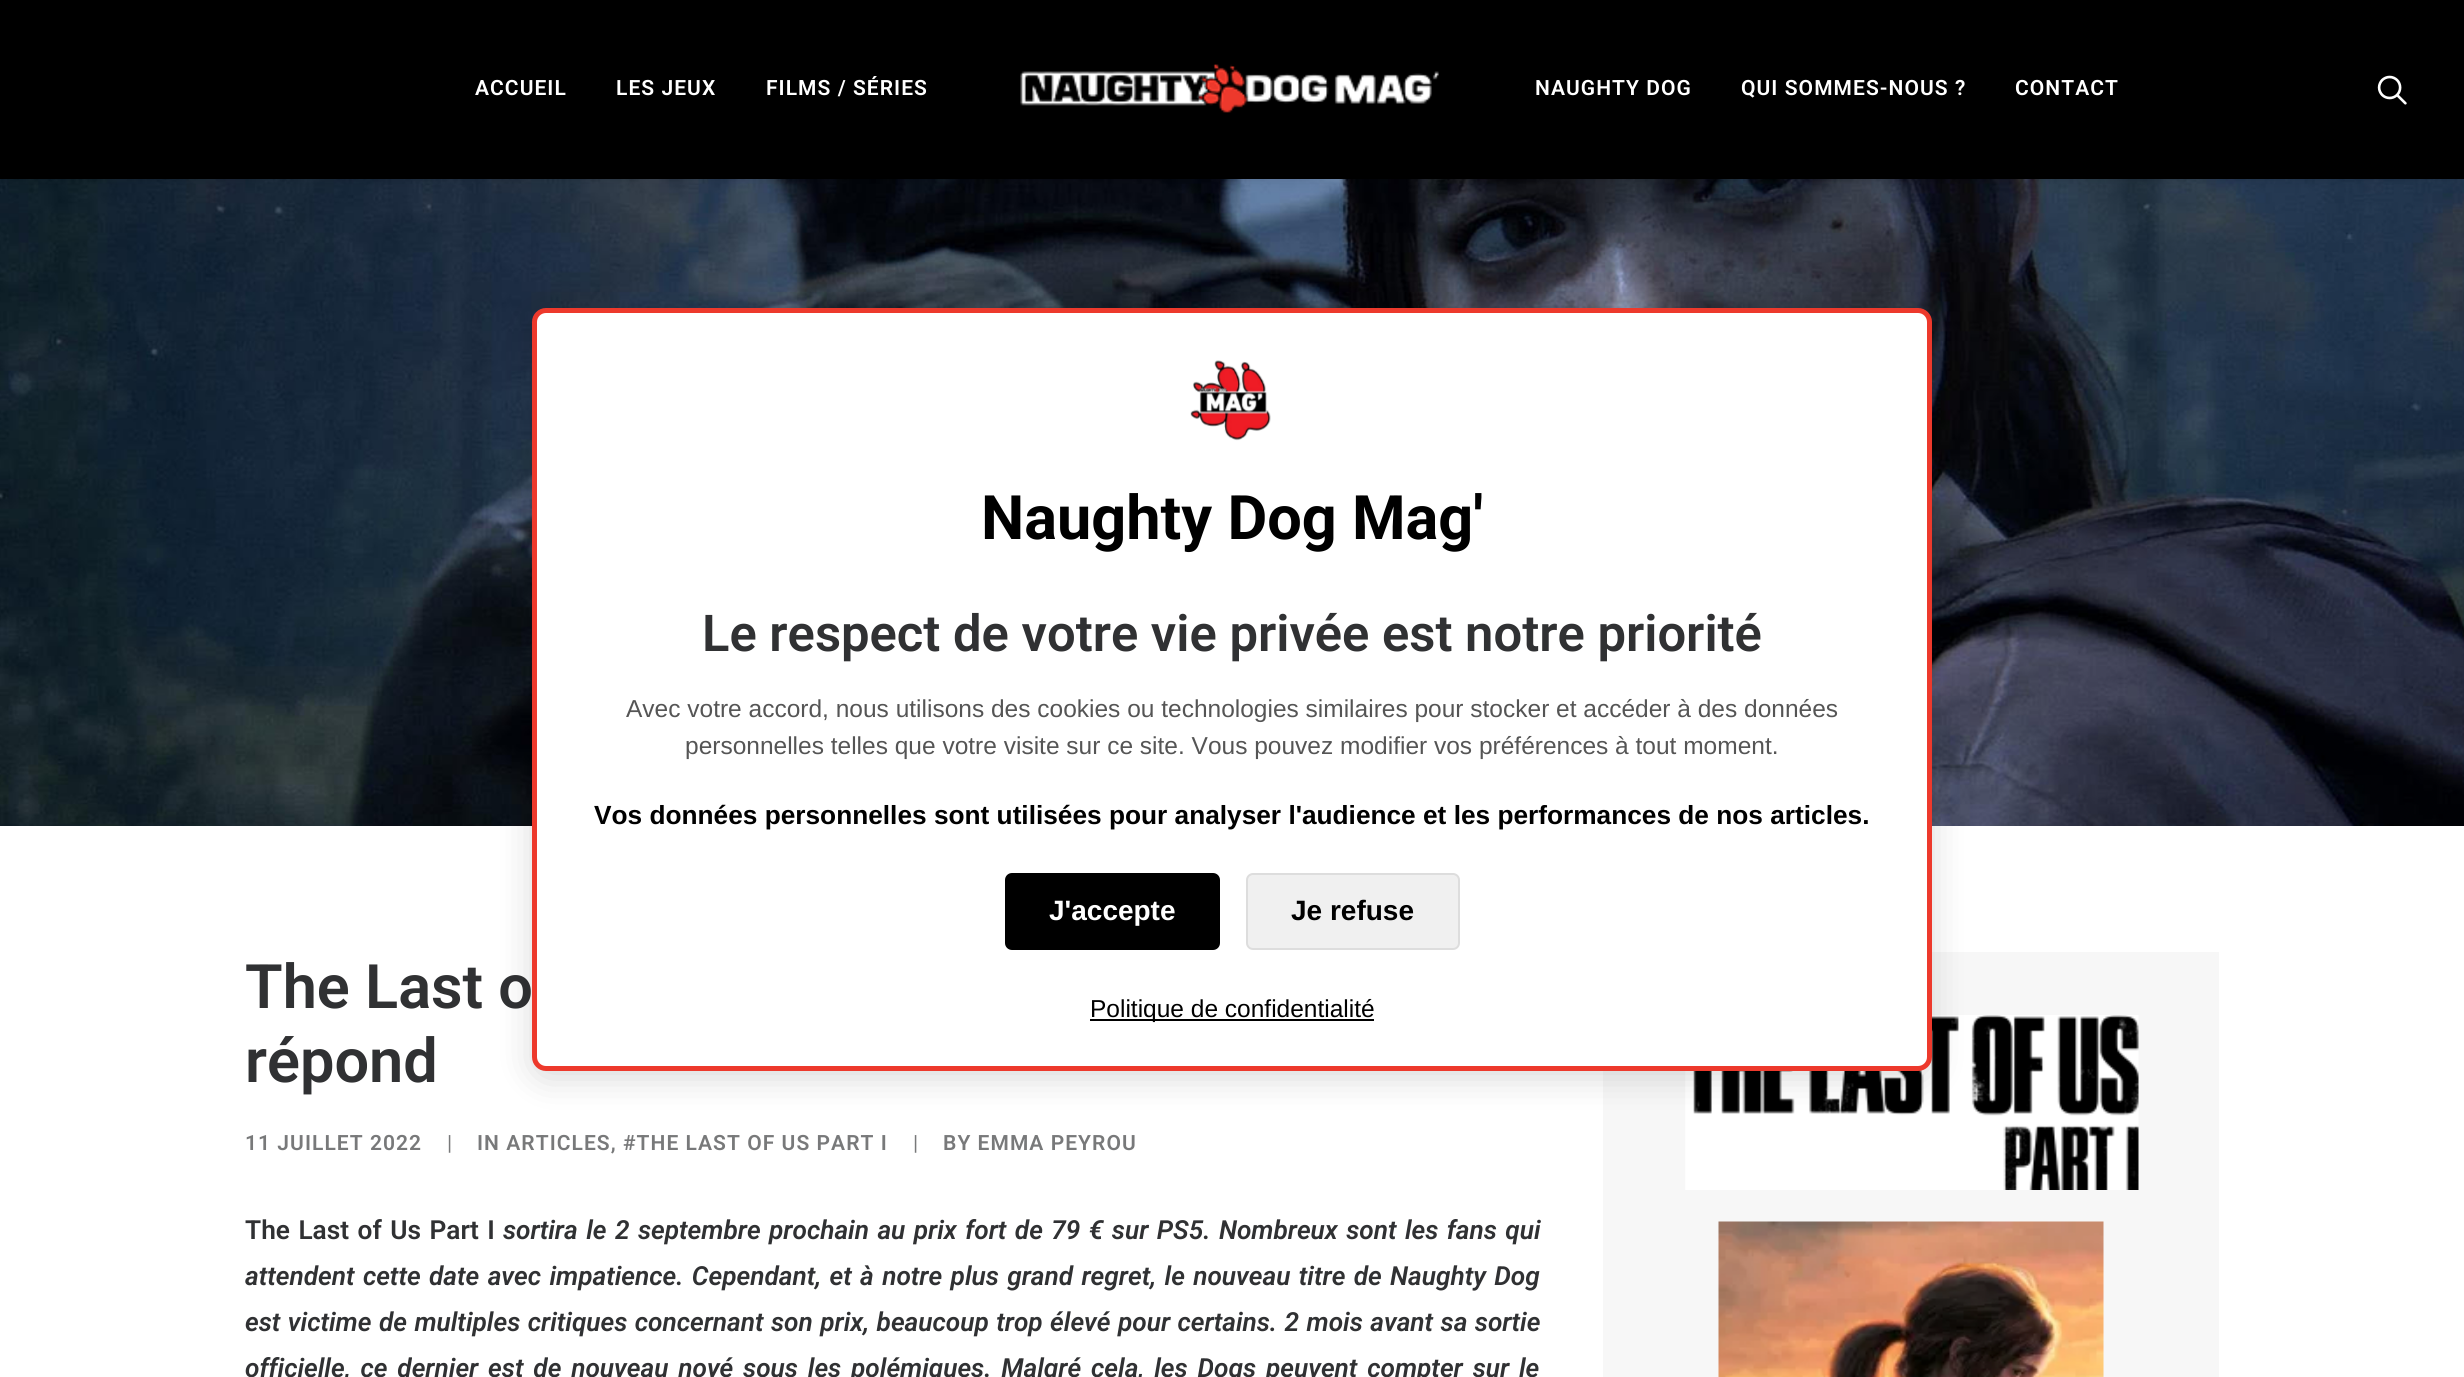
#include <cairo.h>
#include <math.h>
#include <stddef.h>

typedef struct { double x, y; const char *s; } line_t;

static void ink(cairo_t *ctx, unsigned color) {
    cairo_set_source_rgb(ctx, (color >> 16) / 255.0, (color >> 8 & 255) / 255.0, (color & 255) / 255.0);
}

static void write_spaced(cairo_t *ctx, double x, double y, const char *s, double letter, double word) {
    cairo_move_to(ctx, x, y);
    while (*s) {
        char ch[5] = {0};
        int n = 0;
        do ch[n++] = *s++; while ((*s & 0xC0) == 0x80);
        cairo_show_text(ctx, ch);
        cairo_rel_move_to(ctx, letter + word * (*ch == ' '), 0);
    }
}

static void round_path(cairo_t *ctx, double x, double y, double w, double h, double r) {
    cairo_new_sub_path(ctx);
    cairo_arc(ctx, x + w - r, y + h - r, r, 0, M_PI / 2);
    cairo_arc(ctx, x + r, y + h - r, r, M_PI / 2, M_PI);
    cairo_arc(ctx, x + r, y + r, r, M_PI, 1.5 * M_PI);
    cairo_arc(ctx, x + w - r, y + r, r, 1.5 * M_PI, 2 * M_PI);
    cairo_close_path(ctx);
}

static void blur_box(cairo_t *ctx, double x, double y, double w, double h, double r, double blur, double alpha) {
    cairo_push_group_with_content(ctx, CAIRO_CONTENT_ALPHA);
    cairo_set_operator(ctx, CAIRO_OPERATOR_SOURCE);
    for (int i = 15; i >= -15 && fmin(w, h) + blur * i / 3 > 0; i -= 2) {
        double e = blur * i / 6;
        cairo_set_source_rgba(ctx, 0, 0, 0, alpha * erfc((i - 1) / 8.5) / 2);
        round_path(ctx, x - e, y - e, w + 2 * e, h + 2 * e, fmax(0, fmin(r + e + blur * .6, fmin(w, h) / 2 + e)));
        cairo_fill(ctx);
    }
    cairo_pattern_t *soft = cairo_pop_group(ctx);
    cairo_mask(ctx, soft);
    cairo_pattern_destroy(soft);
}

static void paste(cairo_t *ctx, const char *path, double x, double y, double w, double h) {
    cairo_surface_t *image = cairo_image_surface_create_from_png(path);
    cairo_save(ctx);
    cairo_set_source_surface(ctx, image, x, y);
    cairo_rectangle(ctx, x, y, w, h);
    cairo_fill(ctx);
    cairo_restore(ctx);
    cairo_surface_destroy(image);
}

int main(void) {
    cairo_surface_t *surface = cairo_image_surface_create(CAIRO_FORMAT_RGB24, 2464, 1377);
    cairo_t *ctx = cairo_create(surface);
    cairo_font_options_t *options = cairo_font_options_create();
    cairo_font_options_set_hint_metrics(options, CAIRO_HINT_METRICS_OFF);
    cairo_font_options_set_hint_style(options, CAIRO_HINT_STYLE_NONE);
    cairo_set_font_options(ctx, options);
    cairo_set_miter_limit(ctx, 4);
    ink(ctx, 0xFFFFFF);
    cairo_paint(ctx);
    paste(ctx, "media/3.png", 0, 179, 2464, 647);
    ink(ctx, 0x000000);
    blur_box(ctx, 11, 25, 2443, 143, 0, 9, 0.6);
    ink(ctx, 0x000000);
    cairo_rectangle(ctx, 0, 0, 2464, 179);
    cairo_fill(ctx);
    cairo_select_font_face(ctx, "Roboto SemiBold", CAIRO_FONT_SLANT_NORMAL, CAIRO_FONT_WEIGHT_NORMAL);
    cairo_set_font_size(ctx, 21);
    ink(ctx, 0xFFFFFF);
    {
        static const line_t items[] = {
            {475, 95, "ACCUEIL"},
            {616, 95, "LES JEUX"},
            {766, 95, "FILMS / SÉRIES"},
        };
        for (size_t i = 0; i < sizeof items / sizeof *items; i++) {
            write_spaced(ctx, items[i].x, items[i].y, items[i].s, 1.05, 0);
        }
    }
    paste(ctx, "media/1.png", 1020, 64, 419, 49);
    {
        static const line_t items[] = {
            {1535, 95, "NAUGHTY DOG"},
            {1741, 95, "QUI SOMMES-NOUS ?"},
            {2015, 95, "CONTACT"},
        };
        for (size_t i = 0; i < sizeof items / sizeof *items; i++) {
            write_spaced(ctx, items[i].x, items[i].y, items[i].s, 1.05, 0);
        }
    }
    paste(ctx, "media/2.png", 2377, 75, 30, 30);
    cairo_set_font_size(ctx, 61.25);
    ink(ctx, 0x303133);
    cairo_move_to(ctx, 245, 1008);
    cairo_show_text(ctx, "The Last o");
    cairo_move_to(ctx, 245, 1082);
    cairo_show_text(ctx, "répond");
    cairo_set_font_size(ctx, 21);
    ink(ctx, 0x78797A);
    write_spaced(ctx, 245, 1150, "11 JUILLET 2022", 1.05, 0);
    cairo_select_font_face(ctx, "Roboto", CAIRO_FONT_SLANT_NORMAL, CAIRO_FONT_WEIGHT_NORMAL);
    write_spaced(ctx, 447, 1150, "|", 1.05, 0);
    cairo_select_font_face(ctx, "Roboto SemiBold", CAIRO_FONT_SLANT_NORMAL, CAIRO_FONT_WEIGHT_NORMAL);
    write_spaced(ctx, 477, 1150, "IN ARTICLES, #THE LAST OF US PART I", 1.05, 0);
    cairo_select_font_face(ctx, "Roboto", CAIRO_FONT_SLANT_NORMAL, CAIRO_FONT_WEIGHT_NORMAL);
    write_spaced(ctx, 913, 1150, "|", 1.05, 0);
    cairo_select_font_face(ctx, "Roboto SemiBold", CAIRO_FONT_SLANT_NORMAL, CAIRO_FONT_WEIGHT_NORMAL);
    write_spaced(ctx, 943, 1150, "BY EMMA PEYROU", 1.05, 0);
    cairo_set_font_size(ctx, 26.25);
    ink(ctx, 0x303133);
    write_spaced(ctx, 245, 1239, "The Last of Us Part I", 0, 2);
    cairo_select_font_face(ctx, "Roboto SemiBold", CAIRO_FONT_SLANT_ITALIC, CAIRO_FONT_WEIGHT_NORMAL);
    write_spaced(ctx, 503, 1239, "sortira le 2 septembre prochain au prix fort de 79 € sur PS5. Nombreux sont les fans qui", 0, 2);
    write_spaced(ctx, 245, 1285, "attendent cette date avec impatience. Cependant, et à notre plus grand regret, le nouveau titre de Naughty Dog", 0, 1.9);
    write_spaced(ctx, 245, 1331, "est victime de multiples critiques concernant son prix, beaucoup trop élevé pour certains. 2 mois avant sa sortie", 0, 1);
    write_spaced(ctx, 245, 1377, "officielle, ce dernier est de nouveau noyé sous les polémiques. Malgré cela, les Dogs peuvent compter sur le", 0, 3.4);
    ink(ctx, 0xF7F7F7);
    cairo_rectangle(ctx, 1603, 952, 616, 425);
    cairo_fill(ctx);
    paste(ctx, "media/4.png", 1685, 1015, 454, 175);
    paste(ctx, "media/5.png", 1718, 1221, 386, 156);
    ink(ctx, 0x000000);
    blur_box(ctx, 532, 315, 1400, 763, 14, 17.5, 0.15);
    ink(ctx, 0xFFFFFF);
    round_path(ctx, 534.5, 310.5, 1395, 758, 11.5);
    cairo_fill_preserve(ctx);
    ink(ctx, 0xED392C);
    cairo_set_line_width(ctx, 5);
    cairo_stroke(ctx);
    paste(ctx, "media/6.png", 1190, 360, 81, 81);
    cairo_select_font_face(ctx, "Roboto", CAIRO_FONT_SLANT_NORMAL, CAIRO_FONT_WEIGHT_BOLD);
    cairo_set_font_size(ctx, 61.25);
    ink(ctx, 0x000000);
    cairo_move_to(ctx, 981, 539);
    cairo_show_text(ctx, "Naughty Dog Mag'");
    cairo_select_font_face(ctx, "Roboto SemiBold", CAIRO_FONT_SLANT_NORMAL, CAIRO_FONT_WEIGHT_NORMAL);
    cairo_set_font_size(ctx, 50.75);
    ink(ctx, 0x303133);
    cairo_move_to(ctx, 702, 651);
    cairo_show_text(ctx, "Le respect de votre vie privée est notre priorité");
    cairo_select_font_face(ctx, "Liberation Sans", CAIRO_FONT_SLANT_NORMAL, CAIRO_FONT_WEIGHT_NORMAL);
    cairo_set_font_size(ctx, 24.5);
    ink(ctx, 0x555555);
    cairo_move_to(ctx, 626, 717);
    cairo_show_text(ctx, "Avec votre accord, nous utilisons des cookies ou technologies similaires pour stocker et accéder à des données");
    cairo_move_to(ctx, 685, 754);
    cairo_show_text(ctx, "personnelles telles que votre visite sur ce site. Vous pouvez modifier vos préférences à tout moment.");
    cairo_select_font_face(ctx, "Liberation Sans", CAIRO_FONT_SLANT_NORMAL, CAIRO_FONT_WEIGHT_BOLD);
    cairo_set_font_size(ctx, 26.25);
    ink(ctx, 0x000000);
    cairo_move_to(ctx, 594, 824);
    cairo_show_text(ctx, "Vos données personnelles sont utilisées pour analyser l'audience et les performances de nos articles.");
    round_path(ctx, 1005, 873, 215, 77, 7);
    cairo_fill(ctx);
    cairo_set_font_size(ctx, 28);
    ink(ctx, 0xFFFFFF);
    cairo_move_to(ctx, 1049, 920);
    cairo_show_text(ctx, "J'accepte");
    ink(ctx, 0xF0F0F0);
    round_path(ctx, 1247, 874, 212, 75, 6);
    cairo_fill_preserve(ctx);
    ink(ctx, 0xDDDDDD);
    cairo_set_line_width(ctx, 2);
    cairo_stroke(ctx);
    ink(ctx, 0x000000);
    cairo_move_to(ctx, 1291, 920);
    cairo_show_text(ctx, "Je refuse");
    cairo_rectangle(ctx, 1090, 1019, 284, 2);
    cairo_fill(ctx);
    cairo_select_font_face(ctx, "Liberation Sans", CAIRO_FONT_SLANT_NORMAL, CAIRO_FONT_WEIGHT_NORMAL);
    cairo_set_font_size(ctx, 24.5);
    cairo_move_to(ctx, 1090, 1017);
    cairo_show_text(ctx, "Politique de confidentialité");
    cairo_surface_write_to_png(surface, "image.png");
    cairo_font_options_destroy(options);
    cairo_destroy(ctx);
    cairo_surface_destroy(surface);
    return 0;
}
